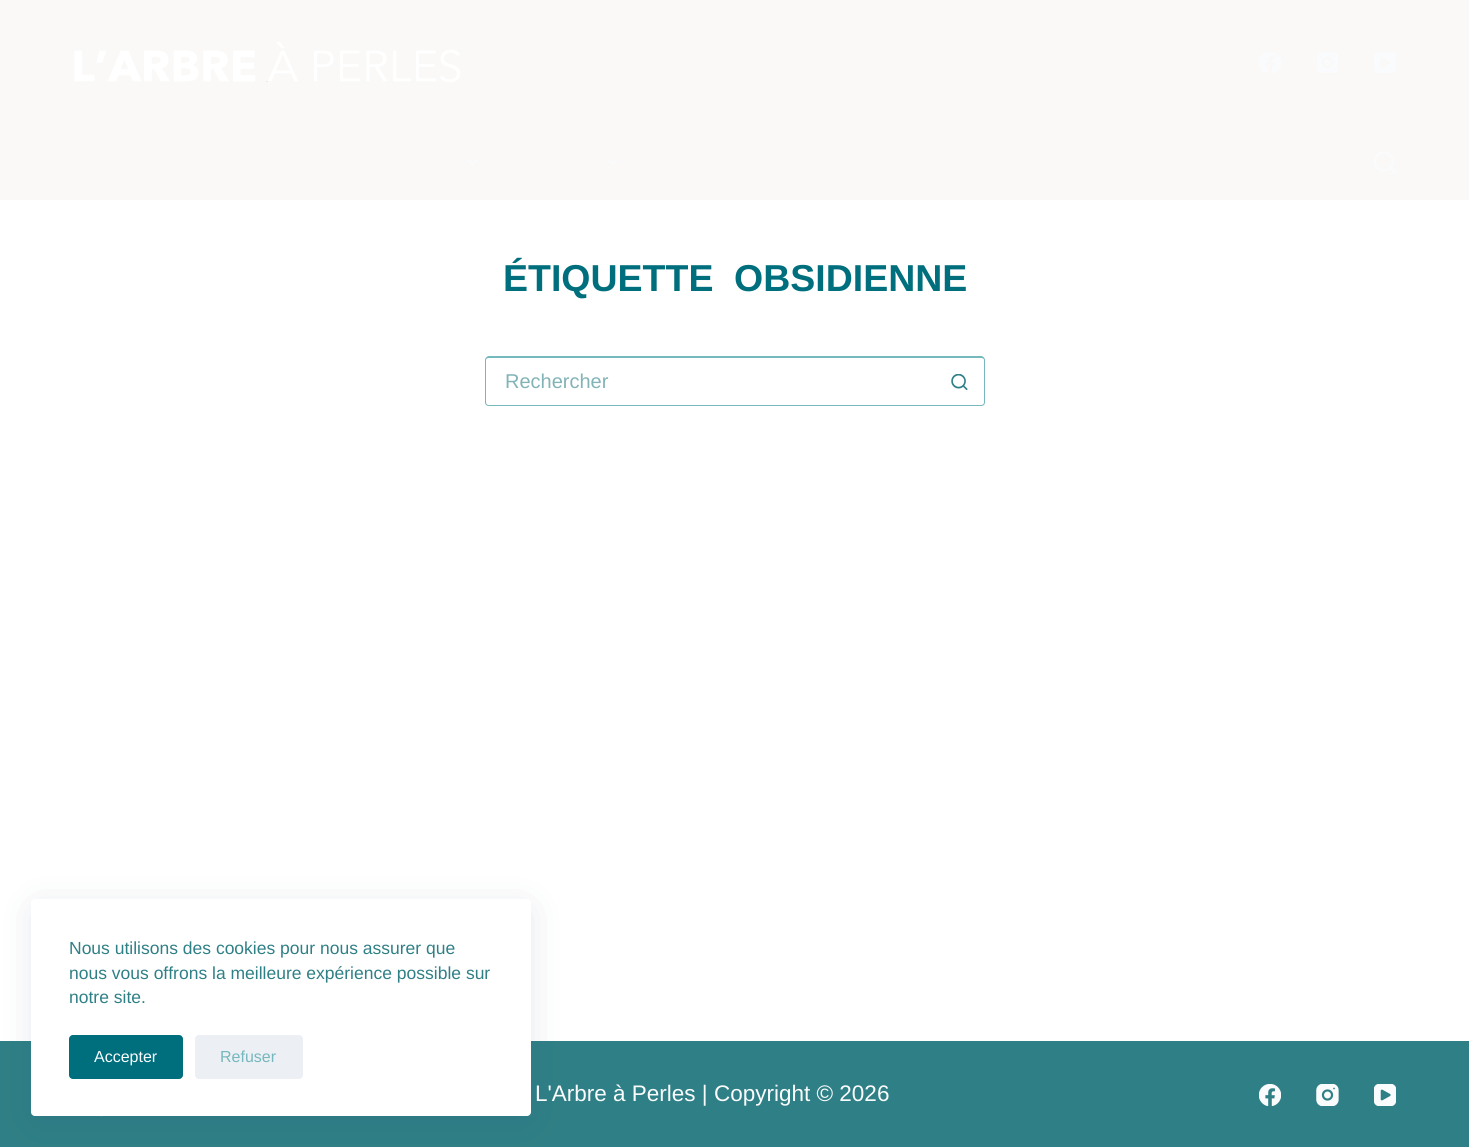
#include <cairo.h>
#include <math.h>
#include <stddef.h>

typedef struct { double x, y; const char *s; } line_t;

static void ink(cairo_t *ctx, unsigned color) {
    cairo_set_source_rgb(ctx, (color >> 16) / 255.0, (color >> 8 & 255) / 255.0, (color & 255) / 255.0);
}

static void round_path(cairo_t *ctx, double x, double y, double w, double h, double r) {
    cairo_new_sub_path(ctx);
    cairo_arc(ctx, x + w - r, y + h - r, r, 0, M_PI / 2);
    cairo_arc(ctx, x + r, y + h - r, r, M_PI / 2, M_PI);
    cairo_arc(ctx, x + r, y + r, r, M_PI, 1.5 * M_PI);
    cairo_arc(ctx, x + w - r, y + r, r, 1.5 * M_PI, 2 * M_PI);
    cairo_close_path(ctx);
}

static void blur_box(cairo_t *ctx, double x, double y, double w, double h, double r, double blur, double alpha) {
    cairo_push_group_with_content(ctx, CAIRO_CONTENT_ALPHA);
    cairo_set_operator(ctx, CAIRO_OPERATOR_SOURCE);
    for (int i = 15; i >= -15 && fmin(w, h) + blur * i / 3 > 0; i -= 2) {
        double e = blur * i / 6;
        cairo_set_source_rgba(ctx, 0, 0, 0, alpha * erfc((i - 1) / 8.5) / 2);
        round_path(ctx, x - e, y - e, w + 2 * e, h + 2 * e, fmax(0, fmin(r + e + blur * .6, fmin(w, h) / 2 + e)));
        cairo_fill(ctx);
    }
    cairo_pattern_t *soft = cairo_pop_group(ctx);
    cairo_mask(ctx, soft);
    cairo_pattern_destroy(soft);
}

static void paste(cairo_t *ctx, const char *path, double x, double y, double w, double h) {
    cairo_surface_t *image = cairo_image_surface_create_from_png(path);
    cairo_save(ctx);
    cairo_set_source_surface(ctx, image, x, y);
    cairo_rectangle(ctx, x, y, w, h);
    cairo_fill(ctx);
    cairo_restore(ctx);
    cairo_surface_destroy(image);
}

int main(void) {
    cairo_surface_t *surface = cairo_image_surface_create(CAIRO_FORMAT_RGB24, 1469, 1147);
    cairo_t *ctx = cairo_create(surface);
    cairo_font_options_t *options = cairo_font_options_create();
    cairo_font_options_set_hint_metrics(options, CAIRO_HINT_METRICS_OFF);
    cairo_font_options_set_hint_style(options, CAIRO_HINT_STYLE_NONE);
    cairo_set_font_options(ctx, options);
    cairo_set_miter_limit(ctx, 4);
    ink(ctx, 0xFFFFFF);
    cairo_paint(ctx);
    ink(ctx, 0x2F8086);
    cairo_rectangle(ctx, 0, 1041, 1469, 106);
    cairo_fill(ctx);
    paste(ctx, "media/11.png", 99, 1116, 4, 1);
    ink(ctx, 0x223865);
    blur_box(ctx, 38, 911, 487, 205, 0, 19, 0.15);
    ink(ctx, 0xFFFFFF);
    round_path(ctx, 31, 899, 500, 217, 4);
    cairo_fill(ctx);
    cairo_select_font_face(ctx, "Liberation Sans", CAIRO_FONT_SLANT_NORMAL, CAIRO_FONT_WEIGHT_NORMAL);
    cairo_set_font_size(ctx, 17.5);
    ink(ctx, 0x2F8086);
    {
        static const line_t items[] = {
            {69, 954, "Nous utilisons des cookies pour nous assurer que"},
            {69, 979, "nous vous offrons la meilleure expérience possible sur"},
            {69, 1003, "notre site."},
        };
        for (size_t i = 0; i < sizeof items / sizeof *items; i++) {
            cairo_move_to(ctx, items[i].x, items[i].y);
            cairo_show_text(ctx, items[i].s);
        }
    }
    ink(ctx, 0x006F7D);
    round_path(ctx, 69, 1035, 114, 44, 4);
    cairo_fill(ctx);
    cairo_set_font_size(ctx, 16);
    ink(ctx, 0xFAFBFC);
    cairo_move_to(ctx, 94, 1062);
    cairo_show_text(ctx, "Accepter");
    ink(ctx, 0xECEFF3);
    round_path(ctx, 195, 1035, 108, 44, 4);
    cairo_fill(ctx);
    ink(ctx, 0x75B8BE);
    cairo_move_to(ctx, 220, 1062);
    cairo_show_text(ctx, "Refuser");
    ink(ctx, 0xFAF9F7);
    cairo_rectangle(ctx, 0, 0, 1469, 200);
    cairo_fill(ctx);
    paste(ctx, "media/1.png", 74, 42, 386, 40);
    paste(ctx, "media/2.png", 1259, 52, 22, 21);
    paste(ctx, "media/3.png", 1317, 52, 21, 21);
    paste(ctx, "media/4.png", 1374, 52, 22, 21);
    paste(ctx, "media/5.png", 468, 160, 9, 5);
    paste(ctx, "media/5.png", 608, 160, 9, 5);
    paste(ctx, "media/6.png", 1374, 152, 22, 21);
    cairo_select_font_face(ctx, "Liberation Sans", CAIRO_FONT_SLANT_NORMAL, CAIRO_FONT_WEIGHT_BOLD);
    cairo_set_font_size(ctx, 37.5);
    ink(ctx, 0x006F7D);
    cairo_move_to(ctx, 503, 291);
    cairo_show_text(ctx, "ÉTIQUETTE");
    cairo_move_to(ctx, 734, 291);
    cairo_show_text(ctx, "OBSIDIENNE");
    ink(ctx, 0x75B8BE);
    cairo_set_fill_rule(ctx, CAIRO_FILL_RULE_EVEN_ODD);
    cairo_new_path(ctx);
    cairo_move_to(ctx, 489, 356);
    cairo_line_to(ctx, 935, 356);
    cairo_line_to(ctx, 935, 406);
    cairo_line_to(ctx, 489, 406);
    cairo_curve_to(ctx, 487, 406, 485, 405, 485, 402);
    cairo_line_to(ctx, 485, 360);
    cairo_curve_to(ctx, 485, 358, 487, 356, 489, 356);
    cairo_close_path(ctx);
    cairo_move_to(ctx, 489, 358);
    cairo_line_to(ctx, 935, 358);
    cairo_line_to(ctx, 935, 405);
    cairo_line_to(ctx, 489, 405);
    cairo_curve_to(ctx, 487, 405, 486, 404, 486, 402);
    cairo_line_to(ctx, 486, 360);
    cairo_curve_to(ctx, 486, 359, 487, 358, 489, 358);
    cairo_close_path(ctx);
    cairo_fill(ctx);
    cairo_select_font_face(ctx, "Liberation Sans", CAIRO_FONT_SLANT_NORMAL, CAIRO_FONT_WEIGHT_NORMAL);
    cairo_set_font_size(ctx, 20);
    ink(ctx, 0x82B3B6);
    cairo_move_to(ctx, 505, 388);
    cairo_show_text(ctx, "Rechercher");
    ink(ctx, 0x75B8BE);
    cairo_new_path(ctx);
    cairo_move_to(ctx, 935, 356);
    cairo_line_to(ctx, 981, 356);
    cairo_curve_to(ctx, 983, 356, 985, 358, 985, 360);
    cairo_line_to(ctx, 985, 402);
    cairo_curve_to(ctx, 985, 405, 983, 406, 981, 406);
    cairo_line_to(ctx, 935, 406);
    cairo_close_path(ctx);
    cairo_move_to(ctx, 935, 358);
    cairo_line_to(ctx, 981, 358);
    cairo_curve_to(ctx, 983, 358, 984, 359, 984, 360);
    cairo_line_to(ctx, 984, 402);
    cairo_curve_to(ctx, 984, 404, 983, 405, 981, 405);
    cairo_line_to(ctx, 935, 405);
    cairo_close_path(ctx);
    cairo_fill(ctx);
    paste(ctx, "media/7.png", 951, 374, 17, 16);
    cairo_set_font_size(ctx, 22.5);
    ink(ctx, 0xFAFBFC);
    cairo_move_to(ctx, 535, 1101);
    cairo_show_text(ctx, "L'Arbre à Perles | Copyright © 2026");
    paste(ctx, "media/8.png", 1259, 1084, 22, 22);
    paste(ctx, "media/9.png", 1316, 1084, 23, 22);
    paste(ctx, "media/10.png", 1374, 1084, 22, 22);
    cairo_surface_write_to_png(surface, "image.png");
    cairo_font_options_destroy(options);
    cairo_destroy(ctx);
    cairo_surface_destroy(surface);
    return 0;
}
